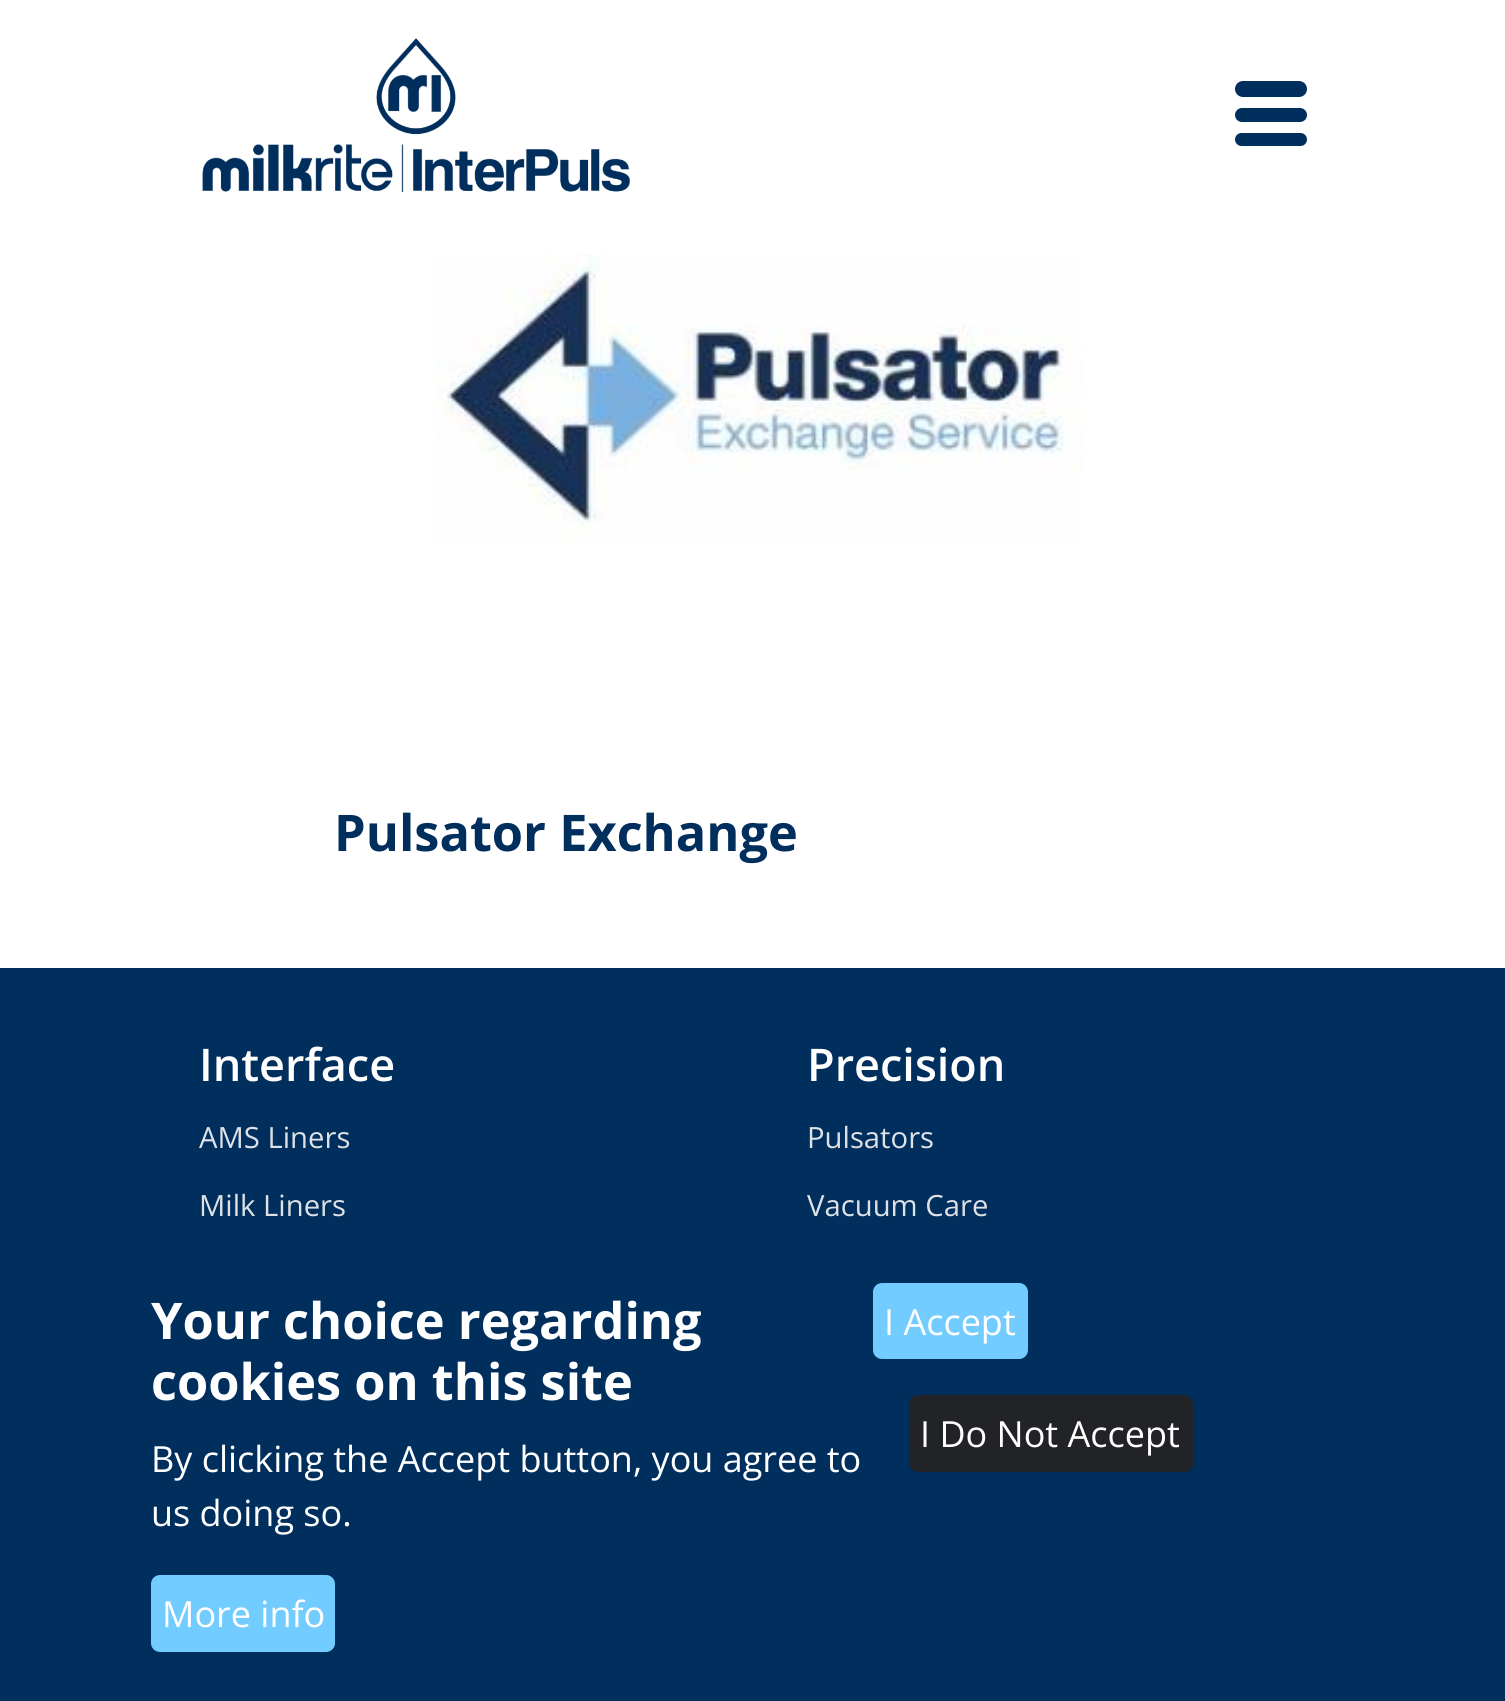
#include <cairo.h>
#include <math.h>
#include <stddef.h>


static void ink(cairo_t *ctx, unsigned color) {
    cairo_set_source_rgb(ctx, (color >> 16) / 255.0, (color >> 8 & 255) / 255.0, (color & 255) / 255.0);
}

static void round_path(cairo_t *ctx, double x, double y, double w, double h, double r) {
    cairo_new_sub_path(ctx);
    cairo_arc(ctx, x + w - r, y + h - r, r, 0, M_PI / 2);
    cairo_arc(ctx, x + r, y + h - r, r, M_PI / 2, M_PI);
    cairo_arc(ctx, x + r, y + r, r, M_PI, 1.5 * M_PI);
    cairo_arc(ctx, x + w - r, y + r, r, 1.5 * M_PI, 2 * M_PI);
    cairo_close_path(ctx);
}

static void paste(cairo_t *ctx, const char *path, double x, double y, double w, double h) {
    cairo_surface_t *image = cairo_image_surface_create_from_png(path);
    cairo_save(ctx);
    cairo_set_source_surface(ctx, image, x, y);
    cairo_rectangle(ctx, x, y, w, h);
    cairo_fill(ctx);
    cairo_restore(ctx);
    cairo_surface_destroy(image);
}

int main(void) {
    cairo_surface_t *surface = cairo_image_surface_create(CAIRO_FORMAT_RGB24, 1505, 1701);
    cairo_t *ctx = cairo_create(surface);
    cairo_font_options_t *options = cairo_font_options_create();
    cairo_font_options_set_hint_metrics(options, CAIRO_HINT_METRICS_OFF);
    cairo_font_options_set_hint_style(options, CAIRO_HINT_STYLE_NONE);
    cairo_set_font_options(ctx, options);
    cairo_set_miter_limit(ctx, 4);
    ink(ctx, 0xFFFFFF);
    cairo_paint(ctx);
    paste(ctx, "media/1.png", 202, 38, 429, 154);
    ink(ctx, 0x002E5D);
    round_path(ctx, 1235, 81, 72, 16, 8);
    cairo_fill(ctx);
    round_path(ctx, 1235, 108, 72, 14, 7);
    cairo_fill(ctx);
    round_path(ctx, 1235, 133, 72, 13, 6.5);
    cairo_fill(ctx);
    paste(ctx, "media/2.png", 434, 254, 648, 288);
    cairo_select_font_face(ctx, "Open Sans", CAIRO_FONT_SLANT_NORMAL, CAIRO_FONT_WEIGHT_BOLD);
    cairo_set_font_size(ctx, 50.5);
    cairo_move_to(ctx, 334, 851);
    cairo_show_text(ctx, "Pulsator Exchange");
    cairo_rectangle(ctx, 0, 968, 1505, 733);
    cairo_fill(ctx);
    cairo_select_font_face(ctx, "Open Sans SemiBold", CAIRO_FONT_SLANT_NORMAL, CAIRO_FONT_WEIGHT_NORMAL);
    cairo_set_font_size(ctx, 45);
    ink(ctx, 0xFFFFFF);
    cairo_move_to(ctx, 199, 1081);
    cairo_show_text(ctx, "Interface");
    cairo_select_font_face(ctx, "Open Sans", CAIRO_FONT_SLANT_NORMAL, CAIRO_FONT_WEIGHT_NORMAL);
    cairo_set_font_size(ctx, 29.25);
    ink(ctx, 0xDEE2E6);
    cairo_move_to(ctx, 199, 1148);
    cairo_show_text(ctx, "AMS Liners");
    cairo_move_to(ctx, 199, 1216);
    cairo_show_text(ctx, "Milk Liners");
    cairo_select_font_face(ctx, "Open Sans SemiBold", CAIRO_FONT_SLANT_NORMAL, CAIRO_FONT_WEIGHT_NORMAL);
    cairo_set_font_size(ctx, 45);
    ink(ctx, 0xFFFFFF);
    cairo_move_to(ctx, 807, 1081);
    cairo_show_text(ctx, "Precision");
    cairo_select_font_face(ctx, "Open Sans", CAIRO_FONT_SLANT_NORMAL, CAIRO_FONT_WEIGHT_NORMAL);
    cairo_set_font_size(ctx, 29.25);
    ink(ctx, 0xDEE2E6);
    cairo_move_to(ctx, 807, 1148);
    cairo_show_text(ctx, "Pulsators");
    cairo_move_to(ctx, 807, 1216);
    cairo_show_text(ctx, "Vacuum Care");
    cairo_select_font_face(ctx, "Open Sans", CAIRO_FONT_SLANT_NORMAL, CAIRO_FONT_WEIGHT_BOLD);
    cairo_set_font_size(ctx, 50.5);
    ink(ctx, 0xFFFFFF);
    cairo_move_to(ctx, 151, 1339);
    cairo_show_text(ctx, "Your choice regarding");
    cairo_move_to(ctx, 151, 1400);
    cairo_show_text(ctx, "cookies on this site");
    cairo_select_font_face(ctx, "Open Sans", CAIRO_FONT_SLANT_NORMAL, CAIRO_FONT_WEIGHT_NORMAL);
    cairo_set_font_size(ctx, 36);
    cairo_move_to(ctx, 151, 1472);
    cairo_show_text(ctx, "By clicking the Accept button, you agree to");
    cairo_move_to(ctx, 151, 1526);
    cairo_show_text(ctx, "us doing so.");
    ink(ctx, 0x73CCFF);
    round_path(ctx, 152, 1576, 182, 75, 8);
    cairo_fill_preserve(ctx);
    cairo_stroke(ctx);
    ink(ctx, 0xFFFFFF);
    cairo_move_to(ctx, 162, 1627);
    cairo_show_text(ctx, "More info");
    ink(ctx, 0x73CCFF);
    round_path(ctx, 874, 1284, 153, 74, 8);
    cairo_fill_preserve(ctx);
    cairo_stroke(ctx);
    ink(ctx, 0xFFFFFF);
    cairo_move_to(ctx, 884, 1335);
    cairo_show_text(ctx, "I Accept");
    ink(ctx, 0x212326);
    round_path(ctx, 910, 1396, 282, 75, 8);
    cairo_fill_preserve(ctx);
    cairo_stroke(ctx);
    ink(ctx, 0xFFFFFF);
    cairo_move_to(ctx, 920, 1447);
    cairo_show_text(ctx, "I Do Not Accept");
    cairo_surface_write_to_png(surface, "image.png");
    cairo_font_options_destroy(options);
    cairo_destroy(ctx);
    cairo_surface_destroy(surface);
    return 0;
}
